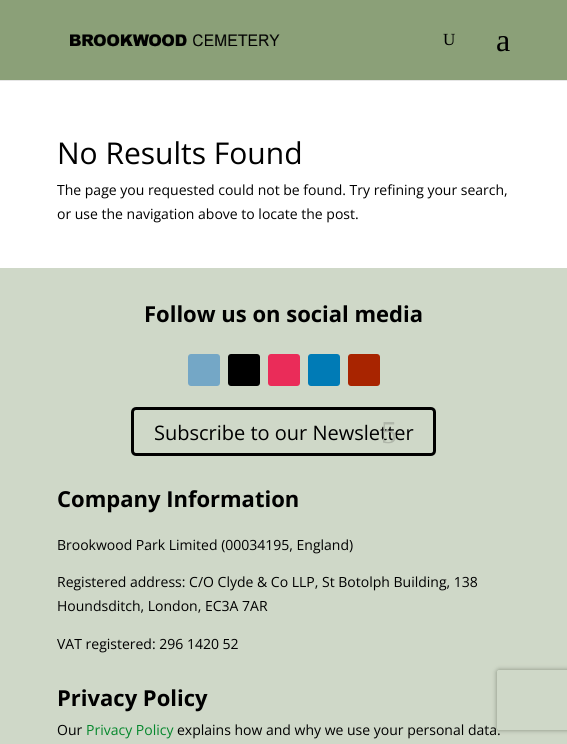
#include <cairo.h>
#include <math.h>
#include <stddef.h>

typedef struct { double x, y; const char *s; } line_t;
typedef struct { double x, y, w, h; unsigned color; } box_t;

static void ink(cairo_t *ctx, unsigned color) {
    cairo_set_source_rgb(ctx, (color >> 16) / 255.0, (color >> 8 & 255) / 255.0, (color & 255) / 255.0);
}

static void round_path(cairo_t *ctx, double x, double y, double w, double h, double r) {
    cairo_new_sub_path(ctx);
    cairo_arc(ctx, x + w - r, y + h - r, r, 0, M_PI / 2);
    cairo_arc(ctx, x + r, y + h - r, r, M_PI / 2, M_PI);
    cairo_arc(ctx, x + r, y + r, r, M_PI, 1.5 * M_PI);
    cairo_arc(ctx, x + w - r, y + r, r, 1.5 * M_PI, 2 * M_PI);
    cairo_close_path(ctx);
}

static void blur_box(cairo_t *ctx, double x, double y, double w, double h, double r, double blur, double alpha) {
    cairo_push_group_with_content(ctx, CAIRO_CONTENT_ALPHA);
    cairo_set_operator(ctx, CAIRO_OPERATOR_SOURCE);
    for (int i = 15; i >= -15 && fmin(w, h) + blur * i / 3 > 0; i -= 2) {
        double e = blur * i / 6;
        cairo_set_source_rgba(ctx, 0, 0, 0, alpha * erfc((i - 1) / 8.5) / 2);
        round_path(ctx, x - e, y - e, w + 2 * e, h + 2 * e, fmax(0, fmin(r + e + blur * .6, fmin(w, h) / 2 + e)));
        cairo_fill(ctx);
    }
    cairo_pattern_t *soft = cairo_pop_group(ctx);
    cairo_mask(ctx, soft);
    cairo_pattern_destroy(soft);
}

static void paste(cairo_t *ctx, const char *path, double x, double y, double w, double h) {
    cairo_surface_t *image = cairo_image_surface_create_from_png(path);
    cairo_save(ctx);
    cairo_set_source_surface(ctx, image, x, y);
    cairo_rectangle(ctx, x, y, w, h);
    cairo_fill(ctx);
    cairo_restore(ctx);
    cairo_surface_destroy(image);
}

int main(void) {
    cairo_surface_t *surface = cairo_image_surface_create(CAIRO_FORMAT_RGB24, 567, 744);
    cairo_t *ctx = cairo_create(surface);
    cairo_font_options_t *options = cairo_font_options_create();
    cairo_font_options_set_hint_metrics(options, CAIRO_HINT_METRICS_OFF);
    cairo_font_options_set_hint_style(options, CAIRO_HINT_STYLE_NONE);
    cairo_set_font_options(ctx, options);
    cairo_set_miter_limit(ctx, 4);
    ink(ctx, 0xFFFFFF);
    cairo_paint(ctx);
    {
        static const box_t items[] = {
            {0, 268, 567, 476, 0xCFD8C8},
            {0, 80, 567, 1, 0xE6E6E6},
            {0, 0, 567, 80, 0x8BA078},
        };
        for (size_t i = 0; i < sizeof items / sizeof *items; i++) {
            ink(ctx, items[i].color);
            cairo_rectangle(ctx, items[i].x, items[i].y, items[i].w, items[i].h);
            cairo_fill(ctx);
        }
    }
    paste(ctx, "media/1.png", 70, 34, 210, 13);
    cairo_select_font_face(ctx, "Liberation Serif", CAIRO_FONT_SLANT_NORMAL, CAIRO_FONT_WEIGHT_NORMAL);
    cairo_set_font_size(ctx, 17);
    ink(ctx, 0x000000);
    cairo_move_to(ctx, 443, 45);
    cairo_show_text(ctx, "U");
    cairo_set_font_size(ctx, 32);
    cairo_move_to(ctx, 496, 51);
    cairo_show_text(ctx, "a");
    cairo_select_font_face(ctx, "Open Sans", CAIRO_FONT_SLANT_NORMAL, CAIRO_FONT_WEIGHT_NORMAL);
    cairo_set_font_size(ctx, 30);
    cairo_move_to(ctx, 57, 164);
    cairo_show_text(ctx, "No Results Found");
    cairo_set_font_size(ctx, 14);
    cairo_move_to(ctx, 57, 195);
    cairo_show_text(ctx, "The page you requested could not be found. Try refining your search,");
    cairo_move_to(ctx, 57, 219);
    cairo_show_text(ctx, "or use the navigation above to locate the post.");
    cairo_select_font_face(ctx, "Open Sans", CAIRO_FONT_SLANT_NORMAL, CAIRO_FONT_WEIGHT_BOLD);
    cairo_set_font_size(ctx, 22);
    cairo_move_to(ctx, 144, 322);
    cairo_show_text(ctx, "Follow us on social media");
    ink(ctx, 0x74A7C6);
    round_path(ctx, 188, 354, 32, 32, 3);
    cairo_fill(ctx);
    ink(ctx, 0x000000);
    round_path(ctx, 228, 354, 32, 32, 3);
    cairo_fill(ctx);
    ink(ctx, 0xEA2C59);
    round_path(ctx, 268, 354, 32, 32, 3);
    cairo_fill(ctx);
    ink(ctx, 0x007BB6);
    round_path(ctx, 308, 354, 32, 32, 3);
    cairo_fill(ctx);
    ink(ctx, 0xA82400);
    round_path(ctx, 348, 354, 32, 32, 3);
    cairo_fill(ctx);
    round_path(ctx, 132.5, 408.5, 302, 46, 3.5);
    ink(ctx, 0x000000);
    cairo_set_line_width(ctx, 3);
    cairo_stroke(ctx);
    cairo_select_font_face(ctx, "Open Sans", CAIRO_FONT_SLANT_NORMAL, CAIRO_FONT_WEIGHT_NORMAL);
    cairo_set_font_size(ctx, 20);
    cairo_move_to(ctx, 154, 440);
    cairo_show_text(ctx, "Subscribe to our Newsletter");
    cairo_select_font_face(ctx, "Liberation Serif", CAIRO_FONT_SLANT_NORMAL, CAIRO_FONT_WEIGHT_NORMAL);
    cairo_set_font_size(ctx, 32);
    ink(ctx, 0xAFB6A9);
    cairo_move_to(ctx, 381, 443);
    cairo_show_text(ctx, "5");
    cairo_select_font_face(ctx, "Open Sans", CAIRO_FONT_SLANT_NORMAL, CAIRO_FONT_WEIGHT_BOLD);
    cairo_set_font_size(ctx, 22);
    ink(ctx, 0x000000);
    cairo_move_to(ctx, 57, 507);
    cairo_show_text(ctx, "Company Information");
    cairo_select_font_face(ctx, "Open Sans", CAIRO_FONT_SLANT_NORMAL, CAIRO_FONT_WEIGHT_NORMAL);
    cairo_set_font_size(ctx, 14);
    {
        static const line_t items[] = {
            {57, 550, "Brookwood Park Limited (00034195, England)"},
            {57, 587, "Registered address: C/O Clyde & Co LLP, St Botolph Building, 138"},
            {57, 611, "Houndsditch, London, EC3A 7AR"},
            {57, 649, "VAT registered: 296 1420 52"},
        };
        for (size_t i = 0; i < sizeof items / sizeof *items; i++) {
            cairo_move_to(ctx, items[i].x, items[i].y);
            cairo_show_text(ctx, items[i].s);
        }
    }
    cairo_select_font_face(ctx, "Open Sans", CAIRO_FONT_SLANT_NORMAL, CAIRO_FONT_WEIGHT_BOLD);
    cairo_set_font_size(ctx, 22);
    cairo_move_to(ctx, 57, 706);
    cairo_show_text(ctx, "Privacy Policy");
    cairo_select_font_face(ctx, "Open Sans", CAIRO_FONT_SLANT_NORMAL, CAIRO_FONT_WEIGHT_NORMAL);
    cairo_set_font_size(ctx, 14);
    cairo_move_to(ctx, 57, 735);
    cairo_show_text(ctx, "Our");
    ink(ctx, 0x05872C);
    cairo_move_to(ctx, 86, 735);
    cairo_show_text(ctx, "Privacy Policy");
    cairo_save(ctx);
    cairo_set_fill_rule(ctx, CAIRO_FILL_RULE_EVEN_ODD);
    cairo_new_path(ctx);
    cairo_move_to(ctx, 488, 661);
    cairo_line_to(ctx, 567, 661);
    cairo_line_to(ctx, 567, 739);
    cairo_line_to(ctx, 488, 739);
    cairo_close_path(ctx);
    cairo_move_to(ctx, 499, 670);
    cairo_line_to(ctx, 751, 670);
    cairo_curve_to(ctx, 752, 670, 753, 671, 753, 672);
    cairo_line_to(ctx, 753, 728);
    cairo_curve_to(ctx, 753, 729, 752, 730, 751, 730);
    cairo_line_to(ctx, 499, 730);
    cairo_curve_to(ctx, 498, 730, 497, 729, 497, 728);
    cairo_line_to(ctx, 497, 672);
    cairo_curve_to(ctx, 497, 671, 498, 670, 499, 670);
    cairo_close_path(ctx);
    cairo_clip(ctx);
    ink(ctx, 0x858D7D);
    blur_box(ctx, 497, 670, 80, 60, 2, 2.5, 1);
    cairo_restore(ctx);
    ink(ctx, 0x000000);
    cairo_move_to(ctx, 177, 735);
    cairo_show_text(ctx, "explains how and why we use your personal data.");
    cairo_surface_write_to_png(surface, "image.png");
    cairo_font_options_destroy(options);
    cairo_destroy(ctx);
    cairo_surface_destroy(surface);
    return 0;
}
